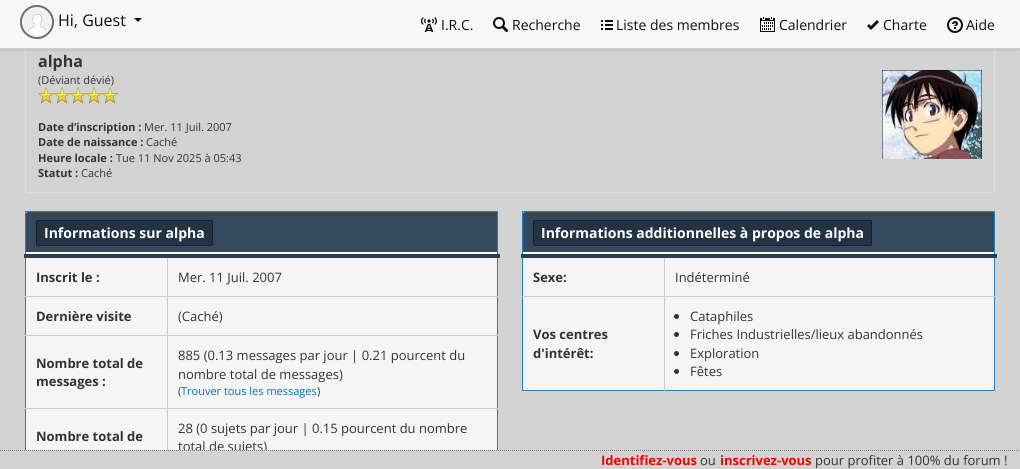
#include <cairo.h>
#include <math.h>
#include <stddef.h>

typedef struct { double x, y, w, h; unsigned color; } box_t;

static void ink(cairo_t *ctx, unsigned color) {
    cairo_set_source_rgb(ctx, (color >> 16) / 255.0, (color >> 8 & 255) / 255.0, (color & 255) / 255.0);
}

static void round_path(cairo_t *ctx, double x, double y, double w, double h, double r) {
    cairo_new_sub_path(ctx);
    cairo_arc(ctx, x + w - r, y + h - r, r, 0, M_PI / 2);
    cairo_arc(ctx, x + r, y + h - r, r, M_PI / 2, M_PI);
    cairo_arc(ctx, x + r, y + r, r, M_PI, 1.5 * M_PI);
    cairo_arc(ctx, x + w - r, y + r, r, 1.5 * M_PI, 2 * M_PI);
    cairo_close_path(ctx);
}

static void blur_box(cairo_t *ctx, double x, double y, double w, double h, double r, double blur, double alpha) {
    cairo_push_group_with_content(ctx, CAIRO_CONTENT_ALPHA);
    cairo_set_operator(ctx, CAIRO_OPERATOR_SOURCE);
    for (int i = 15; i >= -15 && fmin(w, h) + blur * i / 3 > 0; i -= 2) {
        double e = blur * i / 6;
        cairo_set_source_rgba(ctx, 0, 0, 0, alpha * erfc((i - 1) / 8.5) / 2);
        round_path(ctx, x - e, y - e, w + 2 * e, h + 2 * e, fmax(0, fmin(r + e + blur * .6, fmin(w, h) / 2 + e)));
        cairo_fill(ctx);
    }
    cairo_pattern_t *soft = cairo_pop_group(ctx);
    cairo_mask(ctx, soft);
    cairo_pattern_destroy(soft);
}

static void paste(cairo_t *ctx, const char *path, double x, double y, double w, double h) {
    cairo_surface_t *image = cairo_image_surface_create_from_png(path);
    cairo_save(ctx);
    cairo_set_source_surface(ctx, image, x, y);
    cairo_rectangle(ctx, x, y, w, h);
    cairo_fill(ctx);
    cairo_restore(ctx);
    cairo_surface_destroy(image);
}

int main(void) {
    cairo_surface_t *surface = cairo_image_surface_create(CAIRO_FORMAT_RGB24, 1020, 469);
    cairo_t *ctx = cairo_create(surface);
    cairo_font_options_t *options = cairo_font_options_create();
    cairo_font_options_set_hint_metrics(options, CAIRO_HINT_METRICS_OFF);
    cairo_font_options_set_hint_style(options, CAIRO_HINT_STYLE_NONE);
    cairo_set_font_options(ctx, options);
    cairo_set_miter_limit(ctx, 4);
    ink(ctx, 0xD3D3D3);
    cairo_paint(ctx);
    round_path(ctx, 25.5, 37.5, 969, 155, 2.5);
    ink(ctx, 0xDDDDDD);
    cairo_set_line_width(ctx, 1);
    cairo_stroke(ctx);
    ink(ctx, 0x000000);
    blur_box(ctx, 0, 1, 1020, 49, 0, 1.5, 0.1);
    ink(ctx, 0xF7F7F7);
    cairo_rectangle(ctx, 0, 0, 1020, 48);
    cairo_fill(ctx);
    ink(ctx, 0xCCCCCC);
    cairo_rectangle(ctx, 0, 48, 1020, 1);
    cairo_fill(ctx);
    cairo_arc(ctx, 37, 22, 16, 0, 2 * M_PI);
    ink(ctx, 0x6D6D6D);
    cairo_set_line_width(ctx, 2);
    cairo_stroke(ctx);
    paste(ctx, "media/1.png", 24, 9, 26, 26);
    cairo_select_font_face(ctx, "Open Sans", CAIRO_FONT_SLANT_NORMAL, CAIRO_FONT_WEIGHT_NORMAL);
    cairo_set_font_size(ctx, 16);
    ink(ctx, 0x0D0D0D);
    cairo_move_to(ctx, 58, 26);
    cairo_show_text(ctx, "Hi, Guest");
    cairo_new_path(ctx);
    cairo_move_to(ctx, 134, 18);
    cairo_line_to(ctx, 142, 18);
    cairo_line_to(ctx, 138, 22);
    cairo_close_path(ctx);
    cairo_fill(ctx);
    paste(ctx, "media/2.png", 421, 17, 16, 15);
    cairo_set_font_size(ctx, 14);
    cairo_move_to(ctx, 441, 30);
    cairo_show_text(ctx, "I.R.C.");
    paste(ctx, "media/3.png", 493, 17, 16, 16);
    cairo_move_to(ctx, 512, 30);
    cairo_show_text(ctx, "Recherche");
    paste(ctx, "media/4.png", 601, 20, 12, 10);
    cairo_move_to(ctx, 616, 30);
    cairo_show_text(ctx, "Liste des membres");
    paste(ctx, "media/5.png", 760, 17, 15, 15);
    cairo_move_to(ctx, 779, 30);
    cairo_show_text(ctx, "Calendrier");
    paste(ctx, "media/6.png", 867, 20, 12, 10);
    cairo_move_to(ctx, 883, 30);
    cairo_show_text(ctx, "Charte");
    paste(ctx, "media/7.png", 947, 17, 16, 16);
    cairo_move_to(ctx, 966, 30);
    cairo_show_text(ctx, "Aide");
    cairo_select_font_face(ctx, "Open Sans", CAIRO_FONT_SLANT_NORMAL, CAIRO_FONT_WEIGHT_BOLD);
    cairo_set_font_size(ctx, 16);
    ink(ctx, 0x333333);
    cairo_move_to(ctx, 38, 67);
    cairo_show_text(ctx, "alpha");
    cairo_select_font_face(ctx, "Open Sans", CAIRO_FONT_SLANT_NORMAL, CAIRO_FONT_WEIGHT_NORMAL);
    cairo_set_font_size(ctx, 11);
    cairo_move_to(ctx, 38, 84);
    cairo_show_text(ctx, "(Déviant dévié)");
    paste(ctx, "media/8.png", 38, 87, 16, 16);
    paste(ctx, "media/8.png", 54, 87, 16, 16);
    paste(ctx, "media/8.png", 70, 87, 16, 16);
    paste(ctx, "media/8.png", 86, 87, 16, 16);
    paste(ctx, "media/8.png", 102, 87, 16, 16);
    cairo_select_font_face(ctx, "Open Sans", CAIRO_FONT_SLANT_NORMAL, CAIRO_FONT_WEIGHT_BOLD);
    cairo_move_to(ctx, 38, 131);
    cairo_show_text(ctx, "Date d’inscription :");
    cairo_select_font_face(ctx, "Open Sans", CAIRO_FONT_SLANT_NORMAL, CAIRO_FONT_WEIGHT_NORMAL);
    cairo_move_to(ctx, 144, 131);
    cairo_show_text(ctx, "Mer. 11 Juil. 2007");
    cairo_select_font_face(ctx, "Open Sans", CAIRO_FONT_SLANT_NORMAL, CAIRO_FONT_WEIGHT_BOLD);
    cairo_move_to(ctx, 38, 146);
    cairo_show_text(ctx, "Date de naissance :");
    cairo_select_font_face(ctx, "Open Sans", CAIRO_FONT_SLANT_NORMAL, CAIRO_FONT_WEIGHT_NORMAL);
    cairo_move_to(ctx, 146, 146);
    cairo_show_text(ctx, "Caché");
    cairo_select_font_face(ctx, "Open Sans", CAIRO_FONT_SLANT_NORMAL, CAIRO_FONT_WEIGHT_BOLD);
    cairo_move_to(ctx, 38, 162);
    cairo_show_text(ctx, "Heure locale :");
    cairo_select_font_face(ctx, "Open Sans", CAIRO_FONT_SLANT_NORMAL, CAIRO_FONT_WEIGHT_NORMAL);
    cairo_move_to(ctx, 116, 162);
    cairo_show_text(ctx, "Tue 11 Nov 2025 à 05:43");
    cairo_select_font_face(ctx, "Open Sans", CAIRO_FONT_SLANT_NORMAL, CAIRO_FONT_WEIGHT_BOLD);
    cairo_move_to(ctx, 38, 177);
    cairo_show_text(ctx, "Statut :");
    cairo_select_font_face(ctx, "Open Sans", CAIRO_FONT_SLANT_NORMAL, CAIRO_FONT_WEIGHT_NORMAL);
    cairo_move_to(ctx, 81, 177);
    cairo_show_text(ctx, "Caché");
    paste(ctx, "media/9.png", 882, 70, 100, 89);
    ink(ctx, 0xFFFFFF);
    round_path(ctx, 25, 211, 473, 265, 7);
    cairo_fill(ctx);
    ink(ctx, 0x2980B9);
    cairo_rectangle(ctx, 25, 211, 473, 1);
    cairo_fill(ctx);
    ink(ctx, 0x34495E);
    cairo_new_path(ctx);
    cairo_move_to(ctx, 28, 212);
    cairo_line_to(ctx, 496, 212);
    cairo_curve_to(ctx, 497, 212, 498, 213, 498, 214);
    cairo_line_to(ctx, 498, 252);
    cairo_line_to(ctx, 26, 252);
    cairo_line_to(ctx, 26, 214);
    cairo_curve_to(ctx, 26, 213, 27, 212, 28, 212);
    cairo_close_path(ctx);
    cairo_fill(ctx);
    {
        static const box_t items[] = {
            {497, 211, 1, 239, 0x2980B9},
            {25, 211, 1, 239, 0x2980B9},
            {167, 296, 331, 1, 0xCCCCCC},
            {167, 335, 331, 1, 0xCCCCCC},
            {167, 408, 331, 1, 0xCCCCCC},
            {167, 408, 1, 42, 0xCCCCCC},
            {25, 408, 143, 1, 0xCCCCCC},
            {167, 335, 1, 74, 0xCCCCCC},
            {25, 335, 143, 1, 0xCCCCCC},
            {167, 296, 1, 40, 0xCCCCCC},
            {25, 296, 143, 1, 0xCCCCCC},
            {167, 256, 1, 41, 0xCCCCCC},
            {24, 254, 476, 4, 0x2C3E50},
        };
        for (size_t i = 0; i < sizeof items / sizeof *items; i++) {
            ink(ctx, items[i].color);
            cairo_rectangle(ctx, items[i].x, items[i].y, items[i].w, items[i].h);
            cairo_fill(ctx);
        }
    }
    ink(ctx, 0x243342);
    round_path(ctx, 36, 220, 177, 26, 2);
    cairo_fill(ctx);
    round_path(ctx, 36.5, 220.5, 176, 25, 1.5);
    cairo_set_source_rgba(ctx, 0, 0, 0, 0.4);
    cairo_set_line_width(ctx, 1);
    cairo_stroke(ctx);
    cairo_select_font_face(ctx, "Open Sans", CAIRO_FONT_SLANT_NORMAL, CAIRO_FONT_WEIGHT_BOLD);
    cairo_set_font_size(ctx, 14);
    ink(ctx, 0xFFFFFF);
    cairo_move_to(ctx, 44, 238);
    cairo_show_text(ctx, "Informations sur alpha");
    ink(ctx, 0xF5F5F5);
    cairo_rectangle(ctx, 26, 258, 141, 38);
    cairo_fill(ctx);
    cairo_set_font_size(ctx, 13);
    ink(ctx, 0x333333);
    cairo_move_to(ctx, 36, 282);
    cairo_show_text(ctx, "Inscrit le :");
    ink(ctx, 0xF5F5F5);
    cairo_rectangle(ctx, 168, 258, 329, 38);
    cairo_fill(ctx);
    cairo_select_font_face(ctx, "Open Sans", CAIRO_FONT_SLANT_NORMAL, CAIRO_FONT_WEIGHT_NORMAL);
    ink(ctx, 0x333333);
    cairo_move_to(ctx, 178, 282);
    cairo_show_text(ctx, "Mer. 11 Juil. 2007");
    ink(ctx, 0xF5F5F5);
    cairo_rectangle(ctx, 26, 297, 141, 38);
    cairo_fill(ctx);
    cairo_select_font_face(ctx, "Open Sans", CAIRO_FONT_SLANT_NORMAL, CAIRO_FONT_WEIGHT_BOLD);
    ink(ctx, 0x333333);
    cairo_move_to(ctx, 36, 321);
    cairo_show_text(ctx, "Dernière visite");
    ink(ctx, 0xF5F5F5);
    cairo_rectangle(ctx, 168, 297, 329, 38);
    cairo_fill(ctx);
    cairo_select_font_face(ctx, "Open Sans", CAIRO_FONT_SLANT_NORMAL, CAIRO_FONT_WEIGHT_NORMAL);
    ink(ctx, 0x333333);
    cairo_move_to(ctx, 178, 321);
    cairo_show_text(ctx, "(Caché)");
    ink(ctx, 0xF5F5F5);
    cairo_rectangle(ctx, 26, 336, 141, 72);
    cairo_fill(ctx);
    cairo_select_font_face(ctx, "Open Sans", CAIRO_FONT_SLANT_NORMAL, CAIRO_FONT_WEIGHT_BOLD);
    ink(ctx, 0x333333);
    cairo_move_to(ctx, 36, 368);
    cairo_show_text(ctx, "Nombre total de");
    cairo_move_to(ctx, 36, 386);
    cairo_show_text(ctx, "messages :");
    ink(ctx, 0xF5F5F5);
    cairo_rectangle(ctx, 168, 336, 329, 72);
    cairo_fill(ctx);
    cairo_select_font_face(ctx, "Open Sans", CAIRO_FONT_SLANT_NORMAL, CAIRO_FONT_WEIGHT_NORMAL);
    ink(ctx, 0x333333);
    cairo_move_to(ctx, 178, 360);
    cairo_show_text(ctx, "885 (0.13 messages par jour | 0.21 pourcent du");
    cairo_move_to(ctx, 178, 379);
    cairo_show_text(ctx, "nombre total de messages)");
    cairo_set_font_size(ctx, 11);
    cairo_move_to(ctx, 178, 395);
    cairo_show_text(ctx, "(");
    ink(ctx, 0x0072BC);
    cairo_move_to(ctx, 181, 395);
    cairo_show_text(ctx, "Trouver tous les messages");
    ink(ctx, 0x333333);
    cairo_move_to(ctx, 317, 395);
    cairo_show_text(ctx, ")");
    ink(ctx, 0xF5F5F5);
    cairo_rectangle(ctx, 26, 409, 141, 41);
    cairo_fill(ctx);
    cairo_select_font_face(ctx, "Open Sans", CAIRO_FONT_SLANT_NORMAL, CAIRO_FONT_WEIGHT_BOLD);
    cairo_set_font_size(ctx, 13);
    ink(ctx, 0x333333);
    cairo_move_to(ctx, 36, 441);
    cairo_show_text(ctx, "Nombre total de");
    ink(ctx, 0xF5F5F5);
    cairo_rectangle(ctx, 168, 409, 329, 41);
    cairo_fill(ctx);
    cairo_select_font_face(ctx, "Open Sans", CAIRO_FONT_SLANT_NORMAL, CAIRO_FONT_WEIGHT_NORMAL);
    ink(ctx, 0x333333);
    cairo_move_to(ctx, 178, 433);
    cairo_show_text(ctx, "28 (0 sujets par jour | 0.15 pourcent du nombre");
    cairo_move_to(ctx, 178, 451);
    cairo_show_text(ctx, "total de sujets)");
    ink(ctx, 0xFFFFFF);
    round_path(ctx, 522, 211, 473, 180, 7);
    cairo_fill(ctx);
    ink(ctx, 0x2980B9);
    cairo_rectangle(ctx, 522, 211, 473, 1);
    cairo_fill(ctx);
    ink(ctx, 0x34495E);
    cairo_new_path(ctx);
    cairo_move_to(ctx, 525, 212);
    cairo_line_to(ctx, 993, 212);
    cairo_curve_to(ctx, 994, 212, 995, 213, 995, 214);
    cairo_line_to(ctx, 995, 252);
    cairo_line_to(ctx, 523, 252);
    cairo_line_to(ctx, 523, 214);
    cairo_curve_to(ctx, 523, 213, 524, 212, 525, 212);
    cairo_close_path(ctx);
    cairo_fill(ctx);
    ink(ctx, 0x2980B9);
    cairo_rectangle(ctx, 994, 211, 1, 180);
    cairo_fill(ctx);
    ink(ctx, 0xF5F5F5);
    cairo_new_path(ctx);
    cairo_move_to(ctx, 523, 297);
    cairo_line_to(ctx, 664, 297);
    cairo_line_to(ctx, 664, 391);
    cairo_line_to(ctx, 526, 391);
    cairo_curve_to(ctx, 524.5, 391, 523, 389.5, 523, 388);
    cairo_close_path(ctx);
    cairo_fill(ctx);
    {
        static const box_t items[] = {
            {522, 390, 473, 1, 0x2980B9},
            {522, 211, 1, 180, 0x2980B9},
            {664, 296, 331, 1, 0xCCCCCC},
            {664, 296, 1, 95, 0xCCCCCC},
            {522, 296, 143, 1, 0xCCCCCC},
            {664, 256, 1, 41, 0xCCCCCC},
            {521, 254, 476, 4, 0x2C3E50},
        };
        for (size_t i = 0; i < sizeof items / sizeof *items; i++) {
            ink(ctx, items[i].color);
            cairo_rectangle(ctx, items[i].x, items[i].y, items[i].w, items[i].h);
            cairo_fill(ctx);
        }
    }
    ink(ctx, 0x243342);
    round_path(ctx, 533, 220, 339, 26, 2);
    cairo_fill(ctx);
    round_path(ctx, 533.5, 220.5, 338, 25, 1.5);
    cairo_set_source_rgba(ctx, 0, 0, 0, 0.4);
    cairo_stroke(ctx);
    cairo_select_font_face(ctx, "Open Sans", CAIRO_FONT_SLANT_NORMAL, CAIRO_FONT_WEIGHT_BOLD);
    cairo_set_font_size(ctx, 14);
    ink(ctx, 0xFFFFFF);
    cairo_move_to(ctx, 541, 238);
    cairo_show_text(ctx, "Informations additionnelles à propos de alpha");
    ink(ctx, 0xF5F5F5);
    cairo_rectangle(ctx, 523, 258, 141, 38);
    cairo_fill(ctx);
    cairo_set_font_size(ctx, 13);
    ink(ctx, 0x333333);
    cairo_move_to(ctx, 533, 282);
    cairo_show_text(ctx, "Sexe:");
    ink(ctx, 0xF5F5F5);
    cairo_rectangle(ctx, 665, 258, 329, 38);
    cairo_fill(ctx);
    cairo_select_font_face(ctx, "Open Sans", CAIRO_FONT_SLANT_NORMAL, CAIRO_FONT_WEIGHT_NORMAL);
    ink(ctx, 0x333333);
    cairo_move_to(ctx, 675, 282);
    cairo_show_text(ctx, "Indéterminé");
    cairo_select_font_face(ctx, "Open Sans", CAIRO_FONT_SLANT_NORMAL, CAIRO_FONT_WEIGHT_BOLD);
    cairo_move_to(ctx, 533, 339);
    cairo_show_text(ctx, "Vos centres");
    cairo_move_to(ctx, 533, 358);
    cairo_show_text(ctx, "d'intérêt:");
    ink(ctx, 0xF5F5F5);
    cairo_rectangle(ctx, 665, 297, 329, 93);
    cairo_fill(ctx);
    ink(ctx, 0x333333);
    cairo_arc(ctx, 676.5, 316.5, 2.5, 0, 2 * M_PI);
    cairo_fill(ctx);
    cairo_select_font_face(ctx, "Open Sans", CAIRO_FONT_SLANT_NORMAL, CAIRO_FONT_WEIGHT_NORMAL);
    cairo_move_to(ctx, 690, 321);
    cairo_show_text(ctx, "Cataphiles");
    cairo_new_path(ctx);
    cairo_arc(ctx, 676.5, 334.5, 2.5, 0, 2 * M_PI);
    cairo_fill(ctx);
    cairo_move_to(ctx, 690, 339);
    cairo_show_text(ctx, "Friches Industrielles/lieux abandonnés");
    cairo_new_path(ctx);
    cairo_arc(ctx, 676.5, 353.5, 2.5, 0, 2 * M_PI);
    cairo_fill(ctx);
    cairo_move_to(ctx, 690, 358);
    cairo_show_text(ctx, "Exploration");
    cairo_new_path(ctx);
    cairo_arc(ctx, 676.5, 371.5, 2.5, 0, 2 * M_PI);
    cairo_fill(ctx);
    cairo_move_to(ctx, 690, 376);
    cairo_show_text(ctx, "Fêtes");
    ink(ctx, 0xD3D3D3);
    cairo_rectangle(ctx, 25, 450, 473, 19);
    cairo_fill(ctx);
    cairo_new_path(ctx);
    cairo_move_to(ctx, 0, 450.5);
    cairo_line_to(ctx, 1020, 450.5);
    ink(ctx, 0x808080);
    cairo_set_dash(ctx, (double[]){1, 1}, 2, 0);
    cairo_stroke(ctx);
    cairo_select_font_face(ctx, "Open Sans", CAIRO_FONT_SLANT_NORMAL, CAIRO_FONT_WEIGHT_BOLD);
    ink(ctx, 0xFF0000);
    cairo_move_to(ctx, 601, 465);
    cairo_show_text(ctx, "Identifiez-vous");
    cairo_select_font_face(ctx, "Open Sans", CAIRO_FONT_SLANT_NORMAL, CAIRO_FONT_WEIGHT_NORMAL);
    ink(ctx, 0x333333);
    cairo_move_to(ctx, 700, 465);
    cairo_show_text(ctx, "ou");
    cairo_select_font_face(ctx, "Open Sans", CAIRO_FONT_SLANT_NORMAL, CAIRO_FONT_WEIGHT_BOLD);
    ink(ctx, 0xFF0000);
    cairo_move_to(ctx, 720, 465);
    cairo_show_text(ctx, "inscrivez-vous");
    cairo_select_font_face(ctx, "Open Sans", CAIRO_FONT_SLANT_NORMAL, CAIRO_FONT_WEIGHT_NORMAL);
    ink(ctx, 0x333333);
    cairo_move_to(ctx, 815, 465);
    cairo_show_text(ctx, "pour profiter à 100% du forum !");
    cairo_surface_write_to_png(surface, "image.png");
    cairo_font_options_destroy(options);
    cairo_destroy(ctx);
    cairo_surface_destroy(surface);
    return 0;
}
